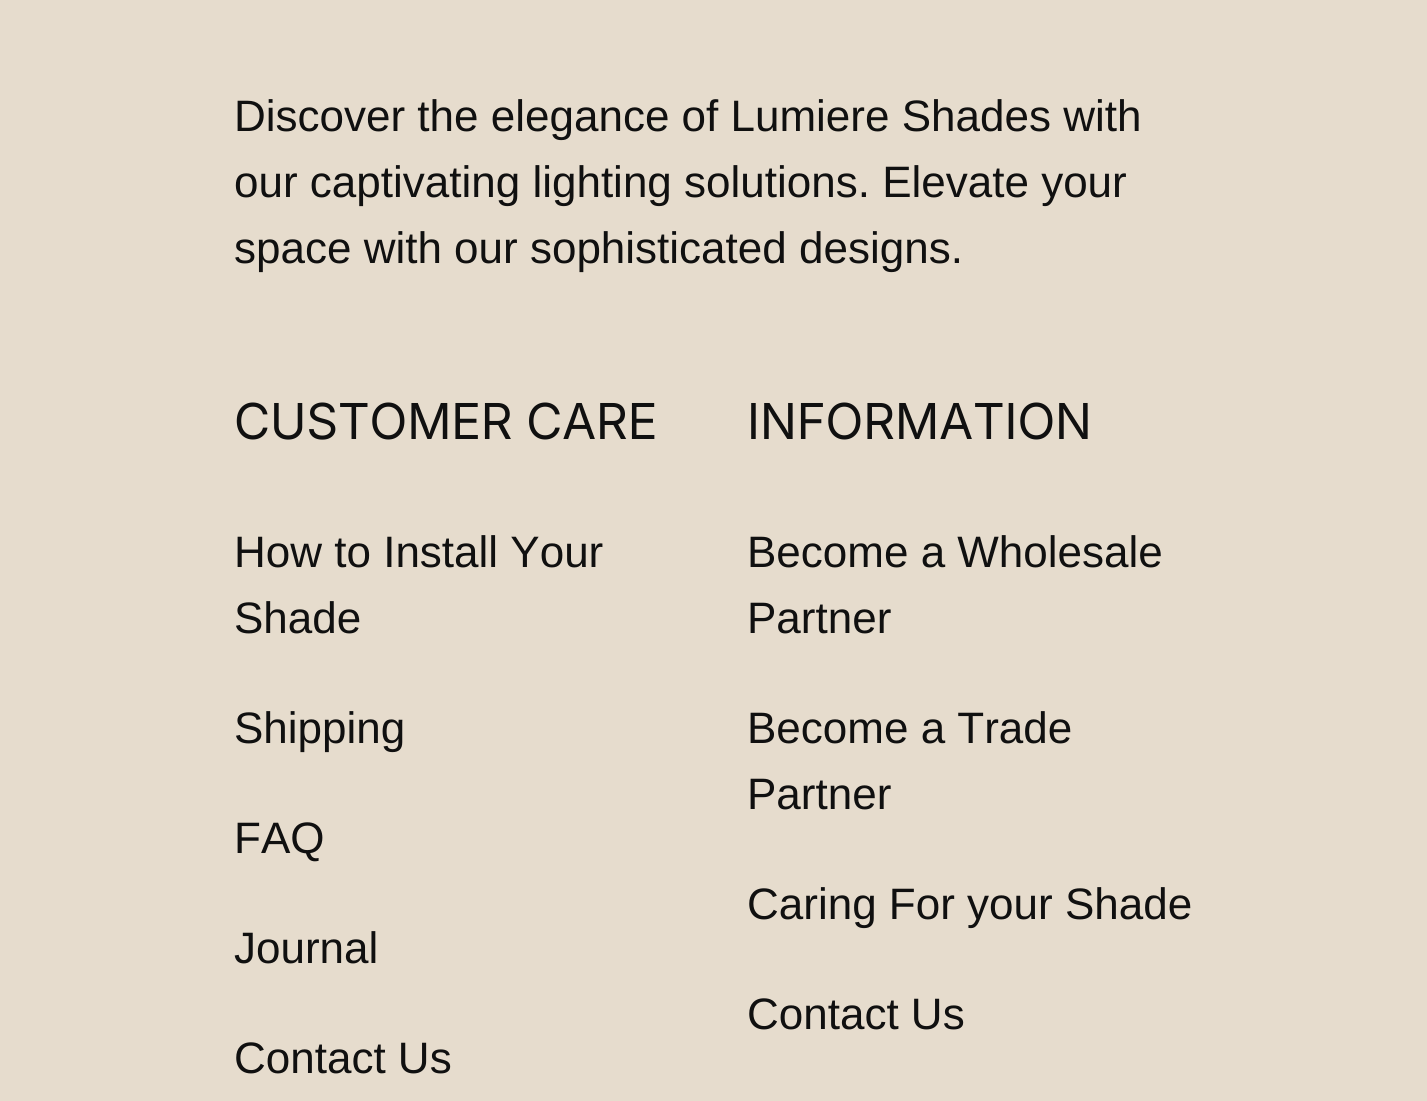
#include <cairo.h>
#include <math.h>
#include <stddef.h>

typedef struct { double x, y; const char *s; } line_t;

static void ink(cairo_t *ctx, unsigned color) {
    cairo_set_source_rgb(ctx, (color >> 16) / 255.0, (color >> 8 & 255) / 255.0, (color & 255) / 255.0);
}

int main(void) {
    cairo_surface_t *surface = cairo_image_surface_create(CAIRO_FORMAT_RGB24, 1427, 1101);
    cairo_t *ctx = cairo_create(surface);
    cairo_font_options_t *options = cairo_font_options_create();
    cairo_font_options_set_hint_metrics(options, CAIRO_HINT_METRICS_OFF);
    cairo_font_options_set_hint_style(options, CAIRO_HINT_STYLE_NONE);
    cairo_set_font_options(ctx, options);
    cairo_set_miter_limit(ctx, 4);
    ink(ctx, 0xE6DCCD);
    cairo_paint(ctx);
    cairo_select_font_face(ctx, "Liberation Sans", CAIRO_FONT_SLANT_NORMAL, CAIRO_FONT_WEIGHT_NORMAL);
    cairo_set_font_size(ctx, 44);
    ink(ctx, 0x101010);
    {
        static const line_t items[] = {
            {234, 131, "Discover the elegance of Lumiere Shades with"},
            {234, 197, "our captivating lighting solutions. Elevate your"},
            {234, 263, "space with our sophisticated designs."},
        };
        for (size_t i = 0; i < sizeof items / sizeof *items; i++) {
            cairo_move_to(ctx, items[i].x, items[i].y);
            cairo_show_text(ctx, items[i].s);
        }
    }
    cairo_select_font_face(ctx, "Inter", CAIRO_FONT_SLANT_NORMAL, CAIRO_FONT_WEIGHT_NORMAL);
    cairo_set_font_size(ctx, 49.5);
    cairo_move_to(ctx, 234, 439);
    cairo_show_text(ctx, "CUSTOMER CARE");
    cairo_select_font_face(ctx, "Liberation Sans", CAIRO_FONT_SLANT_NORMAL, CAIRO_FONT_WEIGHT_NORMAL);
    cairo_set_font_size(ctx, 44);
    {
        static const line_t items[] = {
            {234, 567, "How to Install Your"},
            {234, 633, "Shade"},
            {234, 743, "Shipping"},
            {234, 853, "FAQ"},
            {234, 963, "Journal"},
            {234, 1073, "Contact Us"},
        };
        for (size_t i = 0; i < sizeof items / sizeof *items; i++) {
            cairo_move_to(ctx, items[i].x, items[i].y);
            cairo_show_text(ctx, items[i].s);
        }
    }
    cairo_select_font_face(ctx, "Inter", CAIRO_FONT_SLANT_NORMAL, CAIRO_FONT_WEIGHT_NORMAL);
    cairo_set_font_size(ctx, 49.5);
    cairo_move_to(ctx, 747, 439);
    cairo_show_text(ctx, "INFORMATION");
    cairo_select_font_face(ctx, "Liberation Sans", CAIRO_FONT_SLANT_NORMAL, CAIRO_FONT_WEIGHT_NORMAL);
    cairo_set_font_size(ctx, 44);
    {
        static const line_t items[] = {
            {747, 567, "Become a Wholesale"},
            {747, 633, "Partner"},
            {747, 743, "Become a Trade"},
            {747, 809, "Partner"},
            {747, 919, "Caring For your Shade"},
            {747, 1029, "Contact Us"},
        };
        for (size_t i = 0; i < sizeof items / sizeof *items; i++) {
            cairo_move_to(ctx, items[i].x, items[i].y);
            cairo_show_text(ctx, items[i].s);
        }
    }
    cairo_surface_write_to_png(surface, "image.png");
    cairo_font_options_destroy(options);
    cairo_destroy(ctx);
    cairo_surface_destroy(surface);
    return 0;
}
